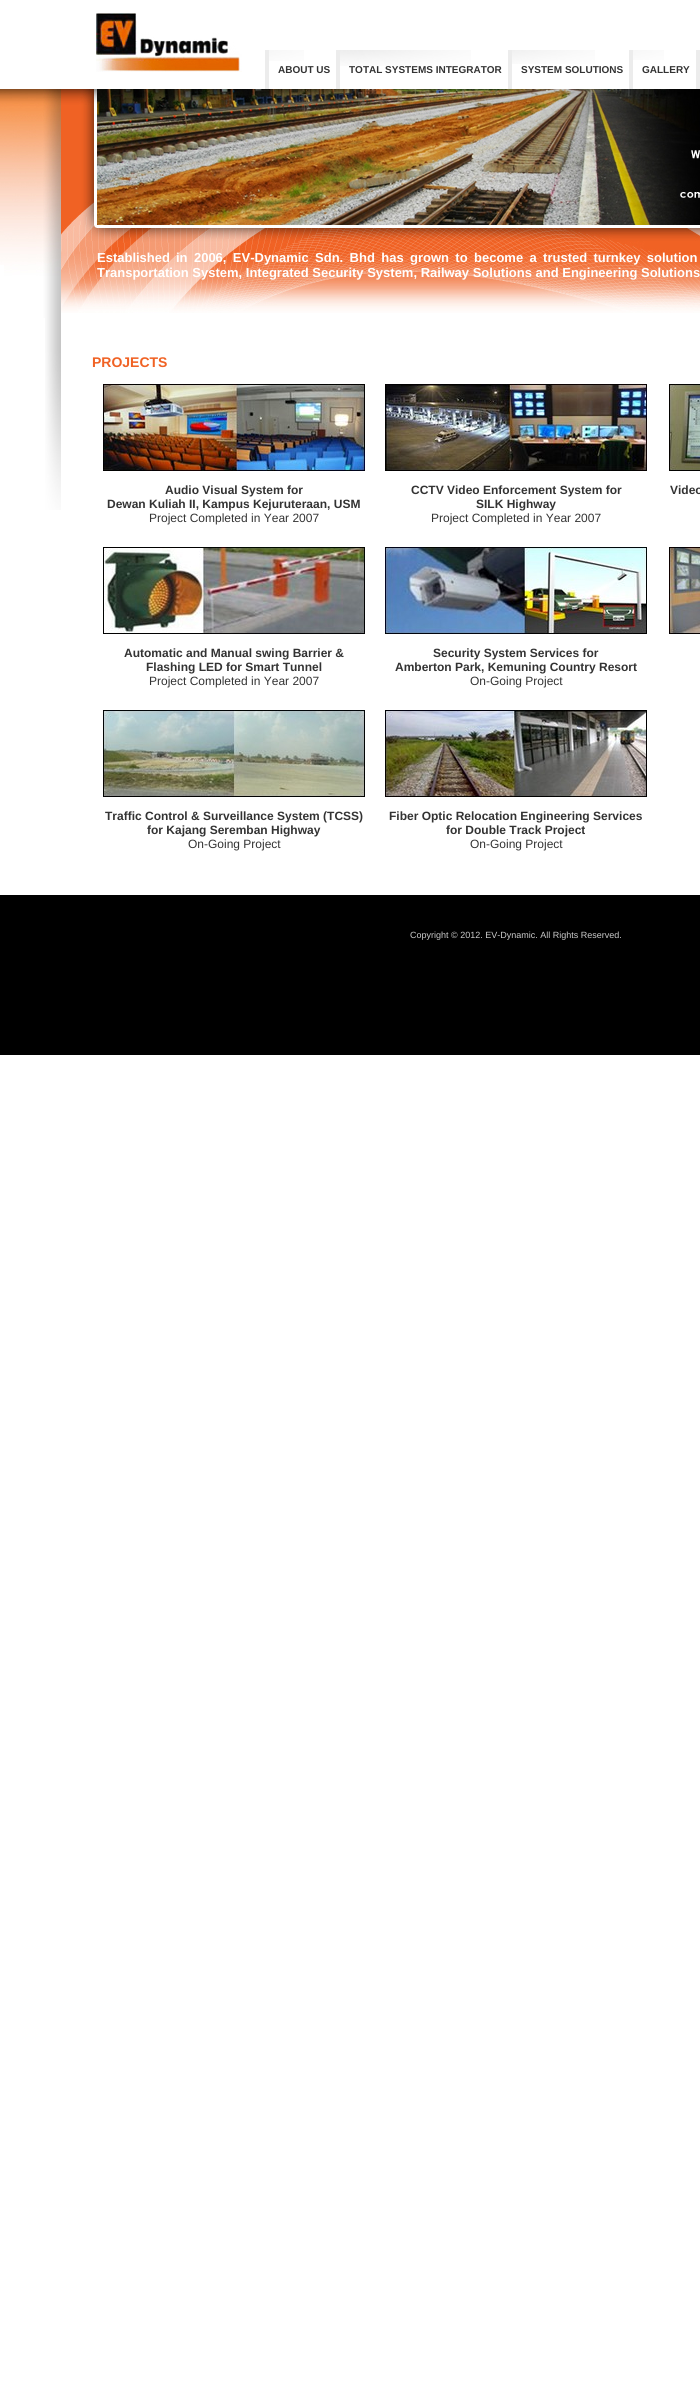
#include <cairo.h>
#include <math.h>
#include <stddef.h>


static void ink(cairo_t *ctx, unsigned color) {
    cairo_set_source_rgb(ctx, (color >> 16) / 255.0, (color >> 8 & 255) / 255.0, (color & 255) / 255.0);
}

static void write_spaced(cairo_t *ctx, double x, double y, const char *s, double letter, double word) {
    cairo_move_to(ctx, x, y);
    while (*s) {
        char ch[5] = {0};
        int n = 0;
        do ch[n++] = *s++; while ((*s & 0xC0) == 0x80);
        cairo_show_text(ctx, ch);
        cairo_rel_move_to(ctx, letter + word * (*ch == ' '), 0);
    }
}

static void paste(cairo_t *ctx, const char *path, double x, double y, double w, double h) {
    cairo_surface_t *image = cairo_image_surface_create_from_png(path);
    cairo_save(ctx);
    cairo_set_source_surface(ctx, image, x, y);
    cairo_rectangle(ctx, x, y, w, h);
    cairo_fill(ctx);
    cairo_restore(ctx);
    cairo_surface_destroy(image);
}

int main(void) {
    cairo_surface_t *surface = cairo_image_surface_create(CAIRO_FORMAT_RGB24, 700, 2390);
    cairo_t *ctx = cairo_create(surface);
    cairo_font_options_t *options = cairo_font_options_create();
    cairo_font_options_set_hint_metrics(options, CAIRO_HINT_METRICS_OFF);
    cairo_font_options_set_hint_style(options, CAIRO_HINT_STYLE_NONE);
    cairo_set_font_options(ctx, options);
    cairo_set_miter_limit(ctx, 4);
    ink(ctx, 0xFFFFFF);
    cairo_paint(ctx);
    paste(ctx, "media/1.png", 241, 13, 1, 59);
    paste(ctx, "media/2.png", 96, 13, 145, 59);
    paste(ctx, "media/3.png", 269, 50, 35, 11);
    ink(ctx, 0xECECEC);
    cairo_rectangle(ctx, 265, 50, 4, 39);
    cairo_fill(ctx);
    cairo_select_font_face(ctx, "Liberation Sans", CAIRO_FONT_SLANT_NORMAL, CAIRO_FONT_WEIGHT_BOLD);
    cairo_set_font_size(ctx, 10);
    ink(ctx, 0x333333);
    cairo_move_to(ctx, 278, 73);
    cairo_show_text(ctx, "ABOUT US");
    paste(ctx, "media/4.png", 340, 50, 131, 16);
    ink(ctx, 0xECECEC);
    cairo_rectangle(ctx, 336, 50, 4, 39);
    cairo_fill(ctx);
    ink(ctx, 0x333333);
    cairo_move_to(ctx, 349, 73);
    cairo_show_text(ctx, "TOTAL SYSTEMS INTEGRATOR");
    paste(ctx, "media/5.png", 512, 50, 83, 14);
    ink(ctx, 0xECECEC);
    cairo_rectangle(ctx, 508, 50, 4, 39);
    cairo_fill(ctx);
    ink(ctx, 0x333333);
    cairo_move_to(ctx, 521, 73);
    cairo_show_text(ctx, "SYSTEM SOLUTIONS");
    paste(ctx, "media/6.png", 633, 50, 31, 10);
    ink(ctx, 0xECECEC);
    cairo_rectangle(ctx, 629, 50, 4, 39);
    cairo_fill(ctx);
    ink(ctx, 0x333333);
    cairo_move_to(ctx, 642, 73);
    cairo_show_text(ctx, "GALLERY");
    ink(ctx, 0xECECEC);
    cairo_rectangle(ctx, 696, 50, 4, 39);
    cairo_fill(ctx);
    paste(ctx, "media/7.png", 0, 89, 4, 136);
    paste(ctx, "media/8.png", 4, 89, 39, 136);
    paste(ctx, "media/9.png", 43, 89, 18, 136);
    paste(ctx, "media/10.png", 61, 89, 36, 136);
    paste(ctx, "media/11.png", 97, 89, 603, 136);
    paste(ctx, "media/12.png", 0, 225, 4, 40);
    paste(ctx, "media/13.png", 4, 225, 57, 93);
    paste(ctx, "media/14.png", 61, 225, 639, 88);
    cairo_set_font_size(ctx, 13);
    ink(ctx, 0xFFFFFF);
    cairo_move_to(ctx, 97, 262);
    cairo_show_text(ctx, "Established");
    write_spaced(ctx, 176, 262, "in 2006, EV-Dynamic Sdn. Bhd has", 0, 2.75);
    write_spaced(ctx, 410, 262, "grown to become a trusted turnkey solution", 0, 2.75);
    cairo_move_to(ctx, 97, 277);
    cairo_show_text(ctx, "Transportation System, Integrated Security System, Railway Solutions and Engineering Solutions");
    paste(ctx, "media/15.png", 45, 318, 16, 22);
    paste(ctx, "media/16.png", 45, 340, 16, 170);
    cairo_set_font_size(ctx, 14);
    ink(ctx, 0xF06224);
    cairo_move_to(ctx, 92, 367);
    cairo_show_text(ctx, "PROJECTS");
    paste(ctx, "media/17.png", 103, 384, 262, 87);
    paste(ctx, "media/18.png", 385, 384, 262, 87);
    paste(ctx, "media/19.png", 669, 384, 31, 87);
    cairo_set_font_size(ctx, 12);
    ink(ctx, 0x333333);
    cairo_move_to(ctx, 165, 494);
    cairo_show_text(ctx, "Audio Visual System for");
    cairo_move_to(ctx, 107, 508);
    cairo_show_text(ctx, "Dewan Kuliah II, Kampus Kejuruteraan, USM");
    cairo_select_font_face(ctx, "Liberation Sans", CAIRO_FONT_SLANT_NORMAL, CAIRO_FONT_WEIGHT_NORMAL);
    cairo_move_to(ctx, 149, 522);
    cairo_show_text(ctx, "Project Completed in Year 2007");
    cairo_select_font_face(ctx, "Liberation Sans", CAIRO_FONT_SLANT_NORMAL, CAIRO_FONT_WEIGHT_BOLD);
    cairo_move_to(ctx, 411, 494);
    cairo_show_text(ctx, "CCTV Video Enforcement System for");
    cairo_move_to(ctx, 476, 508);
    cairo_show_text(ctx, "SILK Highway");
    cairo_select_font_face(ctx, "Liberation Sans", CAIRO_FONT_SLANT_NORMAL, CAIRO_FONT_WEIGHT_NORMAL);
    cairo_move_to(ctx, 431, 522);
    cairo_show_text(ctx, "Project Completed in Year 2007");
    cairo_select_font_face(ctx, "Liberation Sans", CAIRO_FONT_SLANT_NORMAL, CAIRO_FONT_WEIGHT_BOLD);
    cairo_move_to(ctx, 670, 494);
    cairo_show_text(ctx, "Video");
    paste(ctx, "media/20.png", 103, 547, 262, 87);
    paste(ctx, "media/21.png", 385, 547, 262, 87);
    paste(ctx, "media/22.png", 669, 547, 31, 87);
    cairo_move_to(ctx, 124, 657);
    cairo_show_text(ctx, "Automatic and Manual swing Barrier &");
    cairo_move_to(ctx, 146, 671);
    cairo_show_text(ctx, "Flashing LED for Smart Tunnel");
    cairo_select_font_face(ctx, "Liberation Sans", CAIRO_FONT_SLANT_NORMAL, CAIRO_FONT_WEIGHT_NORMAL);
    cairo_move_to(ctx, 149, 685);
    cairo_show_text(ctx, "Project Completed in Year 2007");
    cairo_select_font_face(ctx, "Liberation Sans", CAIRO_FONT_SLANT_NORMAL, CAIRO_FONT_WEIGHT_BOLD);
    cairo_move_to(ctx, 433, 657);
    cairo_show_text(ctx, "Security System Services for");
    cairo_move_to(ctx, 395, 671);
    cairo_show_text(ctx, "Amberton Park, Kemuning Country Resort");
    cairo_select_font_face(ctx, "Liberation Sans", CAIRO_FONT_SLANT_NORMAL, CAIRO_FONT_WEIGHT_NORMAL);
    cairo_move_to(ctx, 470, 685);
    cairo_show_text(ctx, "On-Going Project");
    paste(ctx, "media/23.png", 103, 710, 262, 87);
    paste(ctx, "media/24.png", 385, 710, 262, 87);
    cairo_select_font_face(ctx, "Liberation Sans", CAIRO_FONT_SLANT_NORMAL, CAIRO_FONT_WEIGHT_BOLD);
    cairo_move_to(ctx, 105, 820);
    cairo_show_text(ctx, "Traffic Control & Surveillance System (TCSS)");
    cairo_move_to(ctx, 147, 834);
    cairo_show_text(ctx, "for Kajang Seremban Highway");
    cairo_select_font_face(ctx, "Liberation Sans", CAIRO_FONT_SLANT_NORMAL, CAIRO_FONT_WEIGHT_NORMAL);
    cairo_move_to(ctx, 188, 848);
    cairo_show_text(ctx, "On-Going Project");
    cairo_select_font_face(ctx, "Liberation Sans", CAIRO_FONT_SLANT_NORMAL, CAIRO_FONT_WEIGHT_BOLD);
    cairo_move_to(ctx, 389, 820);
    cairo_show_text(ctx, "Fiber Optic Relocation Engineering Services");
    cairo_move_to(ctx, 446, 834);
    cairo_show_text(ctx, "for Double Track Project");
    cairo_select_font_face(ctx, "Liberation Sans", CAIRO_FONT_SLANT_NORMAL, CAIRO_FONT_WEIGHT_NORMAL);
    cairo_move_to(ctx, 470, 848);
    cairo_show_text(ctx, "On-Going Project");
    ink(ctx, 0x000000);
    cairo_rectangle(ctx, 0, 895, 700, 80);
    cairo_fill(ctx);
    cairo_set_font_size(ctx, 9);
    ink(ctx, 0xCCCCCC);
    cairo_move_to(ctx, 410, 938);
    cairo_show_text(ctx, "Copyright © 2012. EV-Dynamic. All Rights Reserved.");
    ink(ctx, 0x000000);
    cairo_rectangle(ctx, 0, 975, 700, 80);
    cairo_fill(ctx);
    cairo_surface_write_to_png(surface, "image.png");
    cairo_font_options_destroy(options);
    cairo_destroy(ctx);
    cairo_surface_destroy(surface);
    return 0;
}
